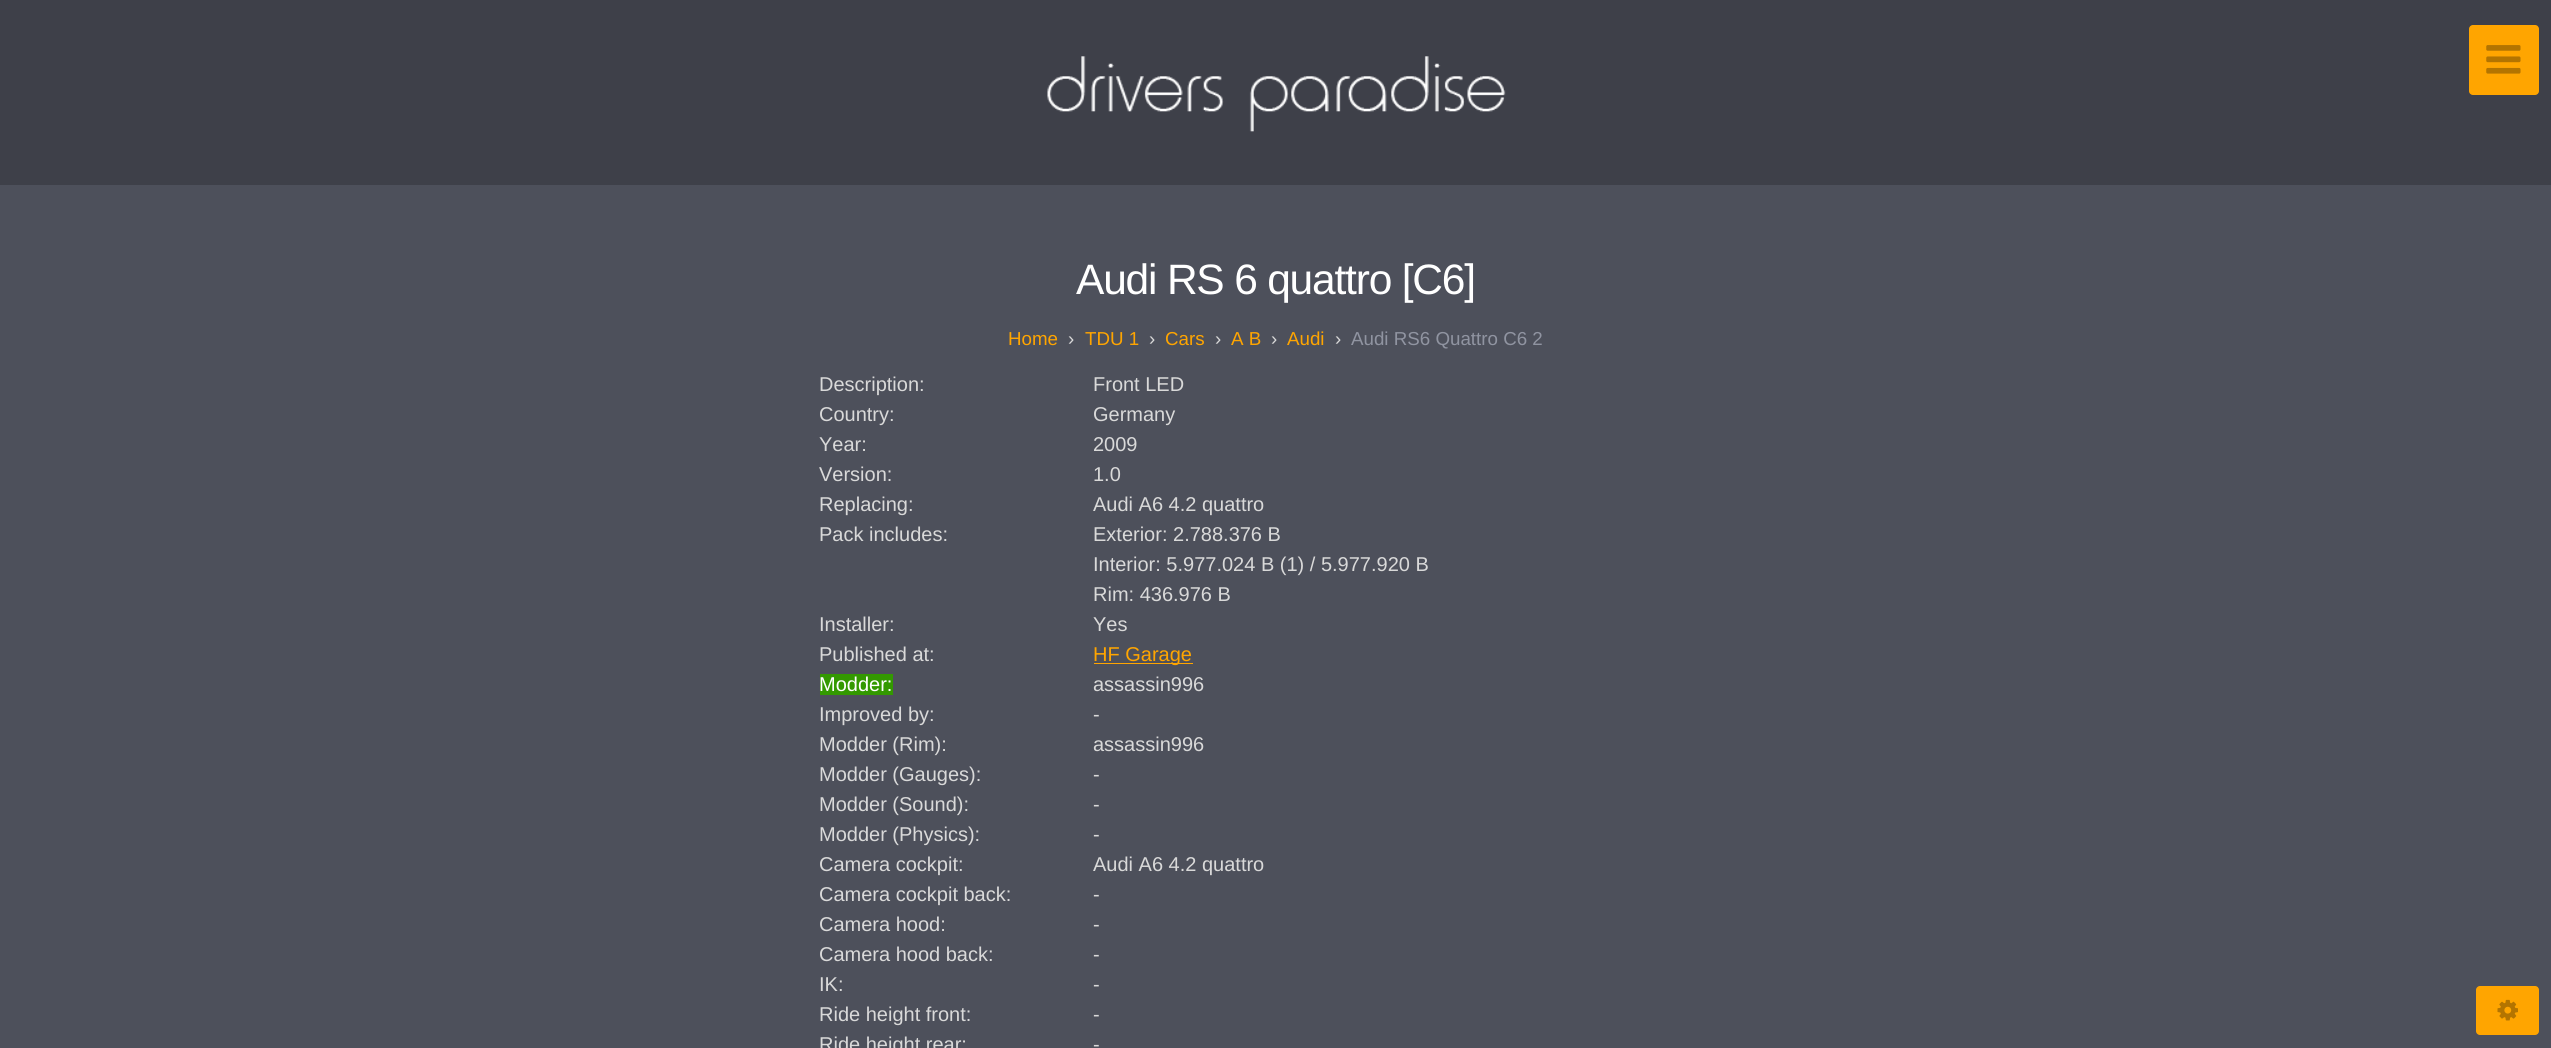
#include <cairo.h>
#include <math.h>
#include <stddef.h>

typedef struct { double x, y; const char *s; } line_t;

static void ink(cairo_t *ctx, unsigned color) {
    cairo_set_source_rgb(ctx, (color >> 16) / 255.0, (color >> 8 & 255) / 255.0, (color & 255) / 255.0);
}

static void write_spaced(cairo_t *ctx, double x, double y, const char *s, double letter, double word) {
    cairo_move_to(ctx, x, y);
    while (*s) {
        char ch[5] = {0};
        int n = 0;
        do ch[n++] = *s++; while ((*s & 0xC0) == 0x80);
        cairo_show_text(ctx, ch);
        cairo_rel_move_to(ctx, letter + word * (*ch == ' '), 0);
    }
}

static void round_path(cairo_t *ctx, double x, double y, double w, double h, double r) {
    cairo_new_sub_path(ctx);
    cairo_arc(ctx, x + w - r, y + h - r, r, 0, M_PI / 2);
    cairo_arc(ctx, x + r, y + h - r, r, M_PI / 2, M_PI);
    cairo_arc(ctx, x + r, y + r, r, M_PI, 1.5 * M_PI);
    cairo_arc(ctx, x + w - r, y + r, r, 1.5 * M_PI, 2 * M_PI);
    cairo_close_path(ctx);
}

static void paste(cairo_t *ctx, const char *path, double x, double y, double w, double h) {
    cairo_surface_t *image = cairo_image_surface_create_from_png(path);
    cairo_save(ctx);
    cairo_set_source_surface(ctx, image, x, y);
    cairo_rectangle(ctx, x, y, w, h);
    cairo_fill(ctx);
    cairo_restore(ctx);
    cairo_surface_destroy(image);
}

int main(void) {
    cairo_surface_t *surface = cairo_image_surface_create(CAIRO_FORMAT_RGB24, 2551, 1048);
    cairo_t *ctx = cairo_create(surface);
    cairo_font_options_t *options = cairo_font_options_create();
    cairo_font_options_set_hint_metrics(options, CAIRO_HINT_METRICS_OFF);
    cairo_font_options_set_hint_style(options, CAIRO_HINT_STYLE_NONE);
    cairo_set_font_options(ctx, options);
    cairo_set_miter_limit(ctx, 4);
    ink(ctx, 0x4D505B);
    cairo_paint(ctx);
    ink(ctx, 0x3E4049);
    cairo_rectangle(ctx, 0, 0, 2551, 185);
    cairo_fill(ctx);
    ink(ctx, 0xFFA500);
    round_path(ctx, 2469, 25, 70, 70, 4);
    cairo_fill(ctx);
    paste(ctx, "media/1.png", 2486, 45, 35, 29);
    paste(ctx, "media/2.png", 1047, 56, 459, 76);
    cairo_select_font_face(ctx, "Liberation Sans", CAIRO_FONT_SLANT_NORMAL, CAIRO_FONT_WEIGHT_NORMAL);
    cairo_set_font_size(ctx, 42.5);
    ink(ctx, 0xFFFFFF);
    write_spaced(ctx, 1076, 294, "Audi RS 6 quattro [C6]", -1.2, 0);
    cairo_set_font_size(ctx, 18.75);
    ink(ctx, 0xFFA500);
    cairo_move_to(ctx, 1008, 345);
    cairo_show_text(ctx, "Home");
    ink(ctx, 0xD9D9D9);
    cairo_move_to(ctx, 1068, 345);
    cairo_show_text(ctx, "›");
    ink(ctx, 0xFFA500);
    cairo_move_to(ctx, 1085, 345);
    cairo_show_text(ctx, "TDU 1");
    ink(ctx, 0xD9D9D9);
    cairo_move_to(ctx, 1149, 345);
    cairo_show_text(ctx, "›");
    ink(ctx, 0xFFA500);
    cairo_move_to(ctx, 1165, 345);
    cairo_show_text(ctx, "Cars");
    ink(ctx, 0xD9D9D9);
    cairo_move_to(ctx, 1215, 345);
    cairo_show_text(ctx, "›");
    ink(ctx, 0xFFA500);
    cairo_move_to(ctx, 1231, 345);
    cairo_show_text(ctx, "A B");
    ink(ctx, 0xD9D9D9);
    cairo_move_to(ctx, 1271, 345);
    cairo_show_text(ctx, "›");
    ink(ctx, 0xFFA500);
    cairo_move_to(ctx, 1287, 345);
    cairo_show_text(ctx, "Audi");
    ink(ctx, 0xD9D9D9);
    cairo_move_to(ctx, 1335, 345);
    cairo_show_text(ctx, "›");
    ink(ctx, 0x9094A1);
    cairo_move_to(ctx, 1351, 345);
    cairo_show_text(ctx, "Audi RS6 Quattro C6 2");
    cairo_set_font_size(ctx, 20);
    ink(ctx, 0xD9D9D9);
    {
        static const line_t items[] = {
            {819, 391, "Description:"},
            {1093, 391, "Front LED"},
            {819, 421, "Country:"},
            {1093, 421, "Germany"},
            {819, 451, "Year:"},
            {1093, 451, "2009"},
            {819, 481, "Version:"},
            {1093, 481, "1.0"},
            {819, 511, "Replacing:"},
            {1093, 511, "Audi A6 4.2 quattro"},
            {819, 541, "Pack includes:"},
            {1093, 541, "Exterior: 2.788.376 B"},
            {1093, 571, "Interior: 5.977.024 B (1) / 5.977.920 B"},
            {1093, 601, "Rim: 436.976 B"},
            {819, 631, "Installer:"},
            {1093, 631, "Yes"},
            {819, 661, "Published at:"},
        };
        for (size_t i = 0; i < sizeof items / sizeof *items; i++) {
            cairo_move_to(ctx, items[i].x, items[i].y);
            cairo_show_text(ctx, items[i].s);
        }
    }
    ink(ctx, 0xFFA500);
    cairo_rectangle(ctx, 1094, 663, 99, 1);
    cairo_fill(ctx);
    cairo_move_to(ctx, 1093, 661);
    cairo_show_text(ctx, "HF Garage");
    ink(ctx, 0x339900);
    cairo_rectangle(ctx, 820, 674, 73, 21);
    cairo_fill(ctx);
    ink(ctx, 0xFFFFFF);
    cairo_move_to(ctx, 819, 691);
    cairo_show_text(ctx, "Modder:");
    ink(ctx, 0xD9D9D9);
    {
        static const line_t items[] = {
            {1093, 691, "assassin996"},
            {819, 721, "Improved by:"},
            {1093, 721, "-"},
            {819, 751, "Modder (Rim):"},
            {1093, 751, "assassin996"},
            {819, 781, "Modder (Gauges):"},
            {1093, 781, "-"},
            {819, 811, "Modder (Sound):"},
            {1093, 811, "-"},
            {819, 841, "Modder (Physics):"},
            {1093, 841, "-"},
            {819, 871, "Camera cockpit:"},
            {1093, 871, "Audi A6 4.2 quattro"},
            {819, 901, "Camera cockpit back:"},
            {1093, 901, "-"},
            {819, 931, "Camera hood:"},
            {1093, 931, "-"},
            {819, 961, "Camera hood back:"},
            {1093, 961, "-"},
            {819, 991, "IK:"},
            {1093, 991, "-"},
            {819, 1021, "Ride height front:"},
            {1093, 1021, "-"},
            {819, 1051, "Ride height rear:"},
            {1093, 1051, "-"},
        };
        for (size_t i = 0; i < sizeof items / sizeof *items; i++) {
            cairo_move_to(ctx, items[i].x, items[i].y);
            cairo_show_text(ctx, items[i].s);
        }
    }
    ink(ctx, 0xFFA500);
    round_path(ctx, 2476, 986, 63, 49, 4);
    cairo_fill(ctx);
    paste(ctx, "media/3.png", 2497, 999, 21, 22);
    cairo_surface_write_to_png(surface, "image.png");
    cairo_font_options_destroy(options);
    cairo_destroy(ctx);
    cairo_surface_destroy(surface);
    return 0;
}
